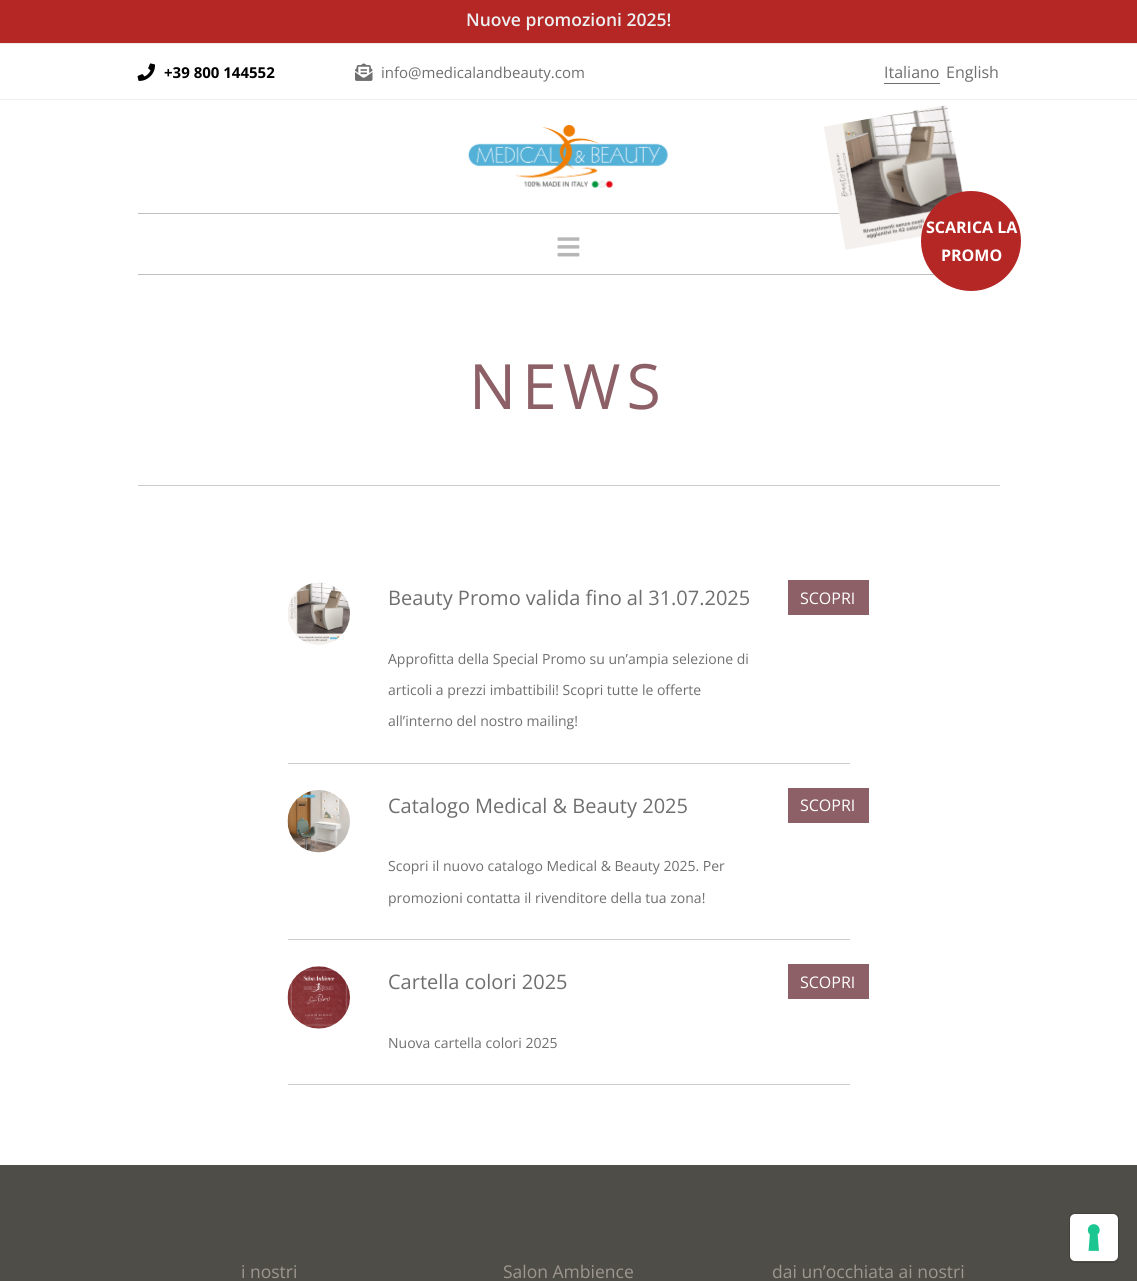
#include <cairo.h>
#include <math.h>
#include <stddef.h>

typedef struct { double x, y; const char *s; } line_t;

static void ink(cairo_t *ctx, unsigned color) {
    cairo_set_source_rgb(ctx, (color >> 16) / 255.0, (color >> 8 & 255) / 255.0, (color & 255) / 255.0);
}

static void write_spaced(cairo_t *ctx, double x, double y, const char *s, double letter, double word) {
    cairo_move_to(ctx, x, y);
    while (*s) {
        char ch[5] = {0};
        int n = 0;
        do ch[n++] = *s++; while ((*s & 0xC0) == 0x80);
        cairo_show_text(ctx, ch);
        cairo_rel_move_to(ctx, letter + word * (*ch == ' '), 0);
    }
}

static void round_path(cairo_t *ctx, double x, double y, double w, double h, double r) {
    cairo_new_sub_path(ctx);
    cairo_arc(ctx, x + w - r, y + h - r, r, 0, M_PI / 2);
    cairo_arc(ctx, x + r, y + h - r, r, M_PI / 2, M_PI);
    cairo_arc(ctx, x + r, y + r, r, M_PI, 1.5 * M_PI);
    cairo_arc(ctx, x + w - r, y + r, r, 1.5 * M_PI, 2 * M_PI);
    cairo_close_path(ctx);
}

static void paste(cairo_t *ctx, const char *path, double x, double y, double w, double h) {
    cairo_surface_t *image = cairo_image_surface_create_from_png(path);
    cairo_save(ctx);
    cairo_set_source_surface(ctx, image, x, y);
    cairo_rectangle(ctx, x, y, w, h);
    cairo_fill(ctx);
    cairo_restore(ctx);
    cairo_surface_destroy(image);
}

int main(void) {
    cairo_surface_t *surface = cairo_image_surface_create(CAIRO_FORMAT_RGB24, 1137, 1281);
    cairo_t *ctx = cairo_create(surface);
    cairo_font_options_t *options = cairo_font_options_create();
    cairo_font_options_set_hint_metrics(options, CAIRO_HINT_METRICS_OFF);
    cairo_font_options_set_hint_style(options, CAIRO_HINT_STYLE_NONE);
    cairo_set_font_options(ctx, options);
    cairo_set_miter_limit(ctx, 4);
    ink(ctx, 0xFFFFFF);
    cairo_paint(ctx);
    ink(ctx, 0xB52725);
    cairo_rectangle(ctx, 0, 0, 1137, 43);
    cairo_fill(ctx);
    ink(ctx, 0xEEEEEE);
    cairo_rectangle(ctx, 0, 43, 1137, 1);
    cairo_fill(ctx);
    cairo_select_font_face(ctx, "Open Sans SemiBold", CAIRO_FONT_SLANT_NORMAL, CAIRO_FONT_WEIGHT_NORMAL);
    cairo_set_font_size(ctx, 17.5);
    ink(ctx, 0xECF0F1);
    cairo_move_to(ctx, 466, 26);
    cairo_show_text(ctx, "Nuove promozioni 2025!");
    ink(ctx, 0xEEEEEE);
    cairo_rectangle(ctx, 0, 99, 1137, 1);
    cairo_fill(ctx);
    paste(ctx, "media/1.png", 137, 63, 18, 18);
    cairo_select_font_face(ctx, "Open Sans", CAIRO_FONT_SLANT_NORMAL, CAIRO_FONT_WEIGHT_BOLD);
    cairo_set_font_size(ctx, 15);
    ink(ctx, 0x000000);
    cairo_move_to(ctx, 164, 78);
    cairo_show_text(ctx, "+39 800 144552");
    paste(ctx, "media/2.png", 355, 63, 18, 18);
    cairo_select_font_face(ctx, "Open Sans", CAIRO_FONT_SLANT_NORMAL, CAIRO_FONT_WEIGHT_NORMAL);
    ink(ctx, 0x706F6F);
    cairo_move_to(ctx, 381, 78);
    cairo_show_text(ctx, "info@medicalandbeauty.com");
    cairo_set_font_size(ctx, 16);
    cairo_move_to(ctx, 884, 78);
    cairo_show_text(ctx, "Italiano");
    cairo_rectangle(ctx, 884, 83, 56, 1);
    cairo_fill(ctx);
    cairo_move_to(ctx, 946, 78);
    cairo_show_text(ctx, "English");
    ink(ctx, 0xBCBEC0);
    cairo_rectangle(ctx, 138, 213, 702, 1);
    cairo_fill(ctx);
    cairo_rectangle(ctx, 138, 274, 797, 1);
    cairo_fill(ctx);
    paste(ctx, "media/3.png", 557, 237, 23, 20);
    paste(ctx, "media/4.png", 468, 125, 200, 63);
    paste(ctx, "media/5.png", 824, 105, 139, 145);
    ink(ctx, 0xB52725);
    cairo_arc(ctx, 971, 241, 50, 0, 2 * M_PI);
    cairo_fill(ctx);
    cairo_select_font_face(ctx, "Open Sans", CAIRO_FONT_SLANT_NORMAL, CAIRO_FONT_WEIGHT_BOLD);
    ink(ctx, 0xFFFFFF);
    cairo_move_to(ctx, 926, 233);
    cairo_show_text(ctx, "SCARICA LA");
    cairo_move_to(ctx, 941, 261);
    cairo_show_text(ctx, "PROMO");
    cairo_select_font_face(ctx, "Open Sans", CAIRO_FONT_SLANT_NORMAL, CAIRO_FONT_WEIGHT_NORMAL);
    cairo_set_font_size(ctx, 62.5);
    ink(ctx, 0x8C6066);
    write_spaced(ctx, 469, 409, "NEWS", 6, 0);
    ink(ctx, 0xCCCCCC);
    cairo_rectangle(ctx, 138, 485, 862, 1);
    cairo_fill(ctx);
    paste(ctx, "media/6.png", 288, 582, 62, 63);
    cairo_set_font_size(ctx, 20);
    ink(ctx, 0x706F6F);
    cairo_move_to(ctx, 388, 605);
    cairo_show_text(ctx, "Beauty Promo valida fino al 31.07.2025");
    cairo_set_font_size(ctx, 14);
    {
        static const line_t items[] = {
            {388, 664, "Approfitta della Special Promo su un’ampia selezione di"},
            {388, 695, "articoli a prezzi imbattibili! Scopri tutte le offerte"},
            {388, 726, "all’interno del nostro mailing!"},
        };
        for (size_t i = 0; i < sizeof items / sizeof *items; i++) {
            cairo_move_to(ctx, items[i].x, items[i].y);
            cairo_show_text(ctx, items[i].s);
        }
    }
    ink(ctx, 0x8C6066);
    cairo_rectangle(ctx, 788, 580, 81, 35);
    cairo_fill(ctx);
    cairo_set_font_size(ctx, 16);
    ink(ctx, 0xFFFFFF);
    cairo_move_to(ctx, 800, 604);
    cairo_show_text(ctx, "SCOPRI");
    ink(ctx, 0xCCCCCC);
    cairo_rectangle(ctx, 288, 763, 562, 1);
    cairo_fill(ctx);
    paste(ctx, "media/7.png", 287, 790, 63, 63);
    cairo_set_font_size(ctx, 20);
    ink(ctx, 0x706F6F);
    cairo_move_to(ctx, 388, 813);
    cairo_show_text(ctx, "Catalogo Medical & Beauty 2025");
    cairo_set_font_size(ctx, 14);
    cairo_move_to(ctx, 388, 871);
    cairo_show_text(ctx, "Scopri il nuovo catalogo Medical & Beauty 2025. Per");
    cairo_move_to(ctx, 388, 903);
    cairo_show_text(ctx, "promozioni contatta il rivenditore della tua zona!");
    ink(ctx, 0x8C6066);
    cairo_rectangle(ctx, 788, 788, 81, 35);
    cairo_fill(ctx);
    cairo_set_font_size(ctx, 16);
    ink(ctx, 0xFFFFFF);
    cairo_move_to(ctx, 800, 811);
    cairo_show_text(ctx, "SCOPRI");
    ink(ctx, 0xCCCCCC);
    cairo_rectangle(ctx, 288, 939, 562, 1);
    cairo_fill(ctx);
    paste(ctx, "media/8.png", 287, 966, 63, 63);
    cairo_set_font_size(ctx, 20);
    ink(ctx, 0x706F6F);
    cairo_move_to(ctx, 388, 989);
    cairo_show_text(ctx, "Cartella colori 2025");
    cairo_set_font_size(ctx, 14);
    cairo_move_to(ctx, 388, 1048);
    cairo_show_text(ctx, "Nuova cartella colori 2025");
    ink(ctx, 0x8C6066);
    cairo_rectangle(ctx, 788, 964, 81, 35);
    cairo_fill(ctx);
    cairo_set_font_size(ctx, 16);
    ink(ctx, 0xFFFFFF);
    cairo_move_to(ctx, 800, 988);
    cairo_show_text(ctx, "SCOPRI");
    ink(ctx, 0xCCCCCC);
    cairo_rectangle(ctx, 288, 1084, 562, 1);
    cairo_fill(ctx);
    ink(ctx, 0x4E4D47);
    cairo_rectangle(ctx, 0, 1165, 1137, 116);
    cairo_fill(ctx);
    round_path(ctx, 1069.5, 1213.5, 49, 49, 5.5);
    ink(ctx, 0x42413C);
    cairo_set_line_width(ctx, 1);
    cairo_stroke(ctx);
    ink(ctx, 0xFFFFFF);
    round_path(ctx, 1070, 1214, 48, 47, 5);
    cairo_fill(ctx);
    paste(ctx, "media/9.png", 1087, 1224, 13, 27);
    cairo_set_font_size(ctx, 17.5);
    ink(ctx, 0x9D978F);
    {
        static const line_t items[] = {
            {241, 1278, "i nostri"},
            {503, 1278, "Salon Ambience"},
            {772, 1278, "dai un’occhiata ai nostri"},
        };
        for (size_t i = 0; i < sizeof items / sizeof *items; i++) {
            cairo_move_to(ctx, items[i].x, items[i].y);
            cairo_show_text(ctx, items[i].s);
        }
    }
    cairo_surface_write_to_png(surface, "image.png");
    cairo_font_options_destroy(options);
    cairo_destroy(ctx);
    cairo_surface_destroy(surface);
    return 0;
}
